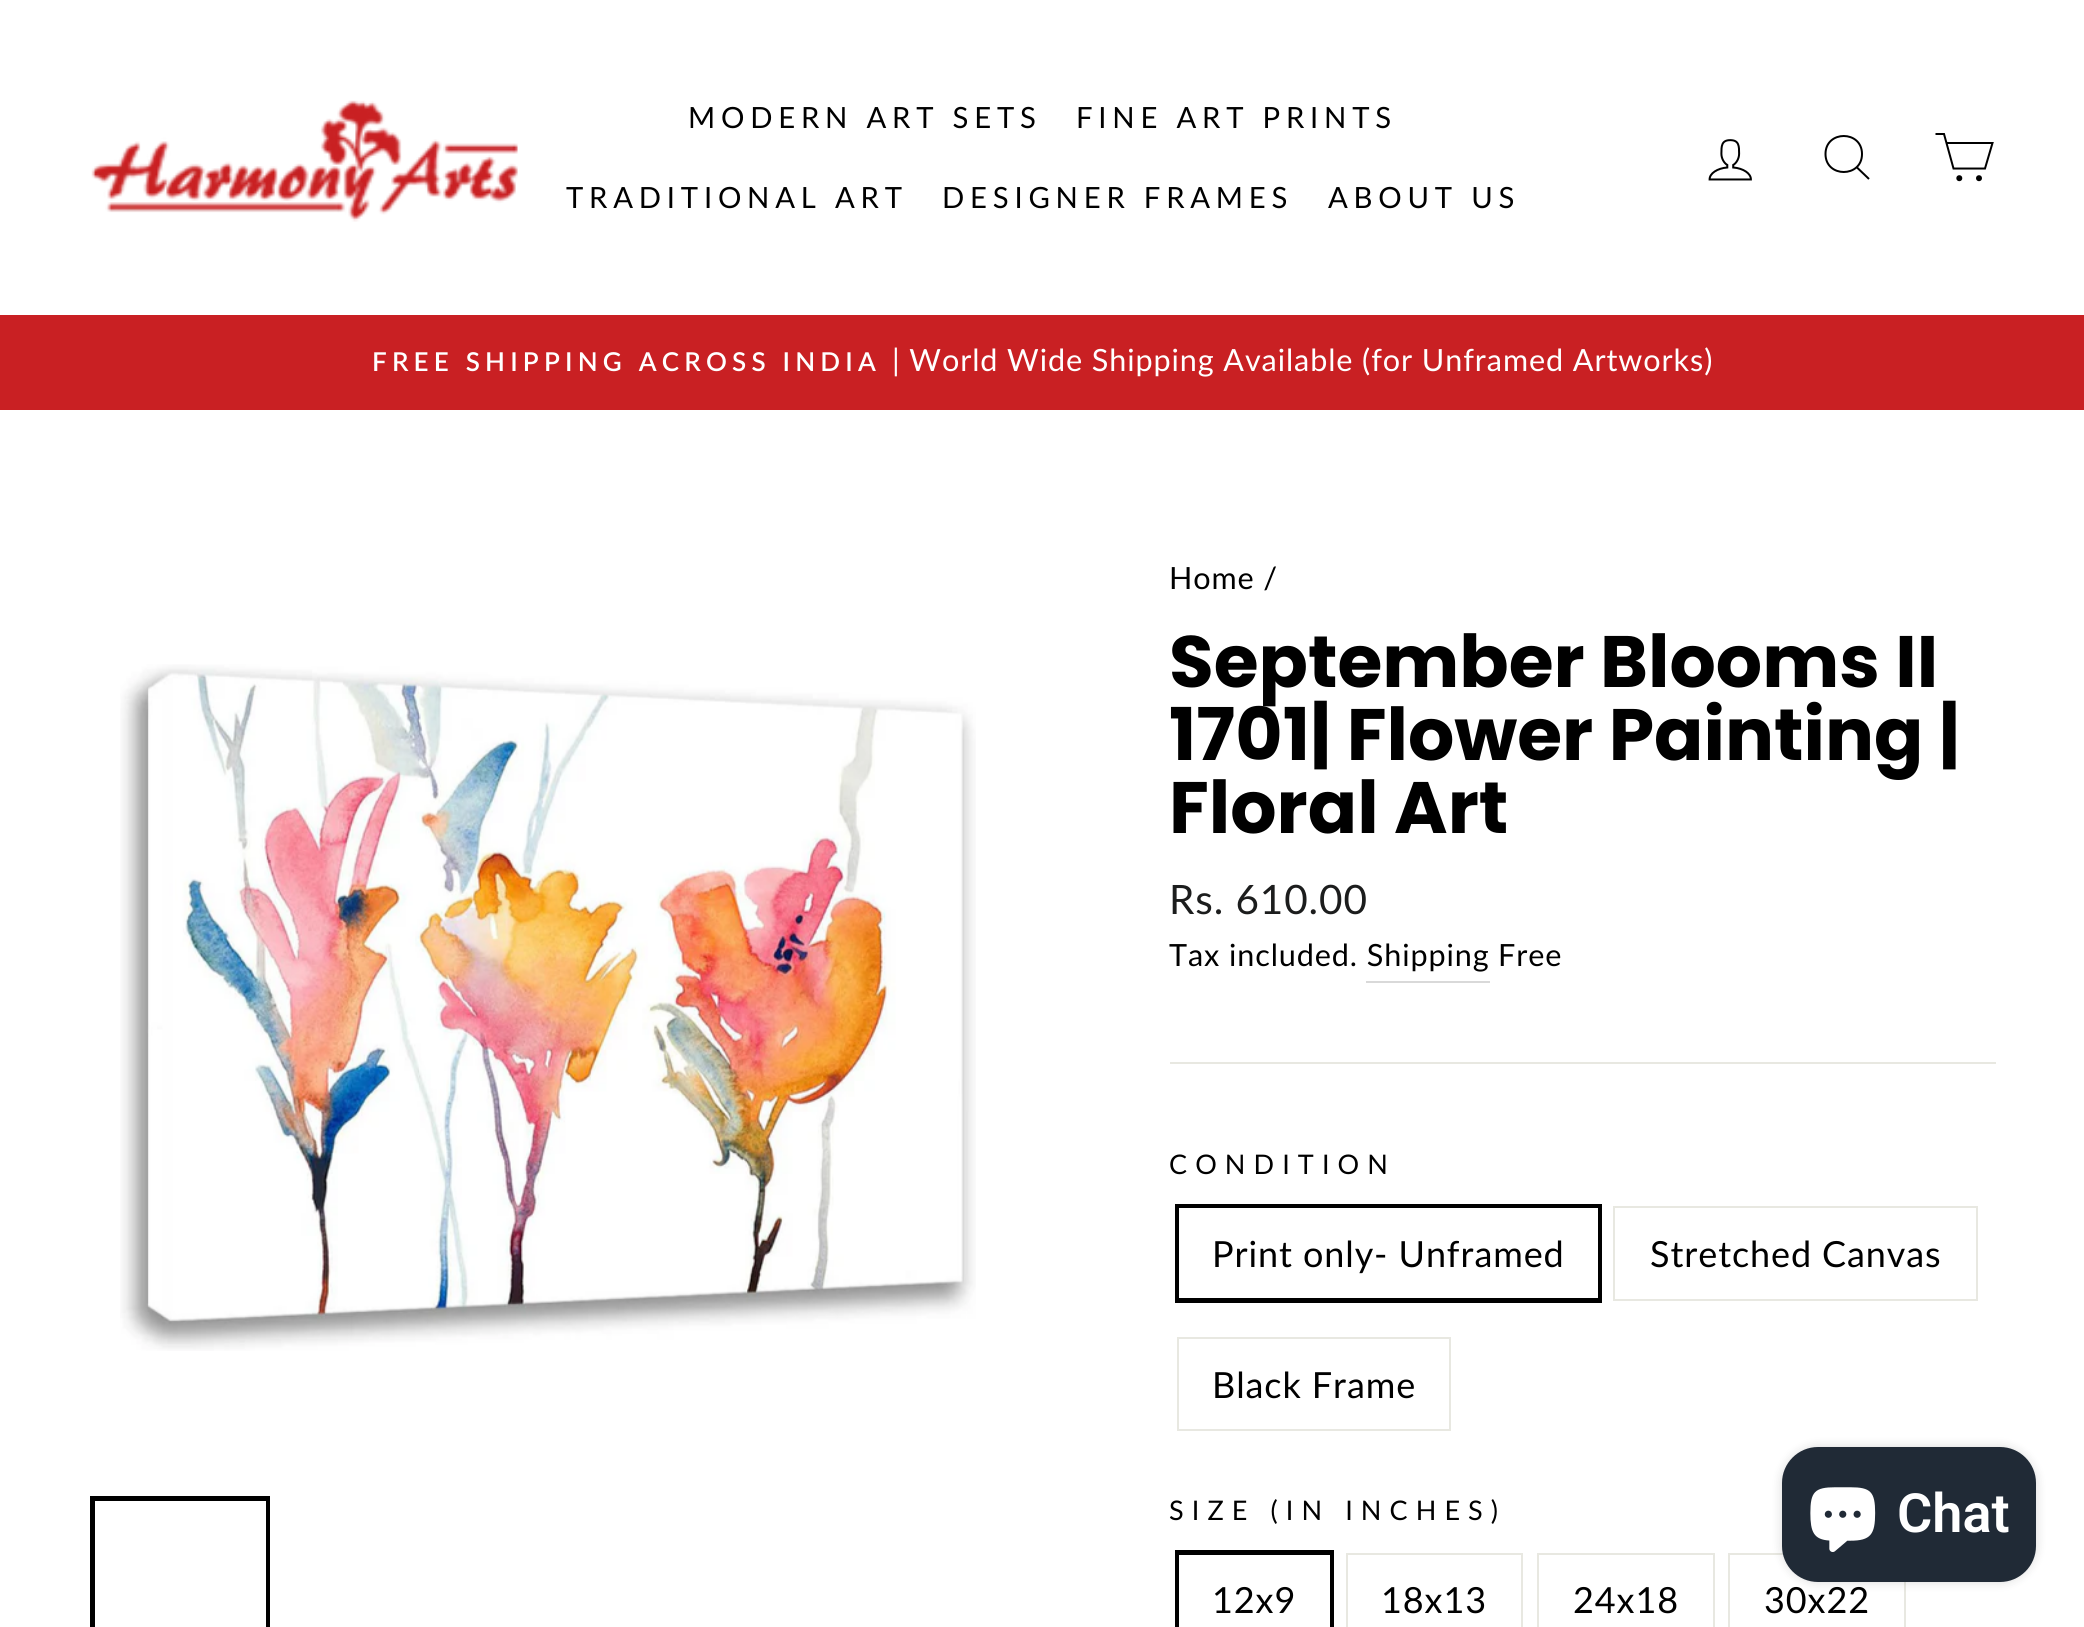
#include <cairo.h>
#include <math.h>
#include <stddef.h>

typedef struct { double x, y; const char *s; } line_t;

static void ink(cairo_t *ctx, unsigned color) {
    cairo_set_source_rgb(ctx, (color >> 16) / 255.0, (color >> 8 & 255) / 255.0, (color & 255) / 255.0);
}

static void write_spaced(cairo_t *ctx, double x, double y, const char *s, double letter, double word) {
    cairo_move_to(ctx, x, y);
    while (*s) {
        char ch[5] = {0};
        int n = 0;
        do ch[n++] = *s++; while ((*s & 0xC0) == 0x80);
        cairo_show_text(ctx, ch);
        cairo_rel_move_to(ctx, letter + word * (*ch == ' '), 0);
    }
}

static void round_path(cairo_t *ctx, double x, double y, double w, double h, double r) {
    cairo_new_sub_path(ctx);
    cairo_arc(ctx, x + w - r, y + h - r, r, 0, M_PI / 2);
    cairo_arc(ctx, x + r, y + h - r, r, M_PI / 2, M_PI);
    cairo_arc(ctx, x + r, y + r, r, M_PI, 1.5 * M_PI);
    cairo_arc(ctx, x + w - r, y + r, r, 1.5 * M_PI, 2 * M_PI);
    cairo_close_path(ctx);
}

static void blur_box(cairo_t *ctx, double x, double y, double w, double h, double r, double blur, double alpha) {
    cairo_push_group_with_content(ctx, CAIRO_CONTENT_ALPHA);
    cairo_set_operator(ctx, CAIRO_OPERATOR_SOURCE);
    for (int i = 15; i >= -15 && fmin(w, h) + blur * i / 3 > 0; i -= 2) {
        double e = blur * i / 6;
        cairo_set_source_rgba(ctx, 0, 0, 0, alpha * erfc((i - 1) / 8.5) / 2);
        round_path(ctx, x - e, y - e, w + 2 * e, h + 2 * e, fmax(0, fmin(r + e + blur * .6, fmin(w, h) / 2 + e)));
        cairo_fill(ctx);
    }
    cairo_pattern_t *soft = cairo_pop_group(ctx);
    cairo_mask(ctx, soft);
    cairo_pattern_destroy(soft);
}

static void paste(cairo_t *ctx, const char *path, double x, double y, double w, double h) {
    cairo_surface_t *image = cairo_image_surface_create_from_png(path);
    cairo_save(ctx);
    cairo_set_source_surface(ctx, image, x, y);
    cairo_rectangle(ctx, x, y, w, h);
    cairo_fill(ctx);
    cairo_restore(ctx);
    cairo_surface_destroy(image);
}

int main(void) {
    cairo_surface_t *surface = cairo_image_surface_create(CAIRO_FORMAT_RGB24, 2084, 1627);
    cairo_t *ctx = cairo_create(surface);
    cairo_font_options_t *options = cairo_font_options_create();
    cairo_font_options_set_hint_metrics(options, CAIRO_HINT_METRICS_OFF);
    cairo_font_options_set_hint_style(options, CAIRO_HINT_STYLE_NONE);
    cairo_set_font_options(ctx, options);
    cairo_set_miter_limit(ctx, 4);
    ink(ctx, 0xFFFFFF);
    cairo_paint(ctx);
    paste(ctx, "media/1.png", 91, 100, 427, 122);
    cairo_select_font_face(ctx, "Lato", CAIRO_FONT_SLANT_NORMAL, CAIRO_FONT_WEIGHT_NORMAL);
    cairo_set_font_size(ctx, 29.25);
    ink(ctx, 0x000000);
    {
        static const line_t items[] = {
            {688, 128, "MODERN ART SETS"},
            {1076, 128, "FINE ART PRINTS"},
            {566, 208, "TRADITIONAL ART"},
            {942, 208, "DESIGNER FRAMES"},
            {1328, 208, "ABOUT US"},
        };
        for (size_t i = 0; i < sizeof items / sizeof *items; i++) {
            write_spaced(ctx, items[i].x, items[i].y, items[i].s, 5.8, 0);
        }
    }
    paste(ctx, "media/2.png", 1708, 139, 44, 42);
    cairo_new_path(ctx);
    cairo_move_to(ctx, 1862, 154);
    cairo_curve_to(ctx, 1862, 178, 1825.5, 178, 1825.5, 154);
    cairo_curve_to(ctx, 1825.5, 130, 1862, 130, 1862, 154);
    cairo_close_path(ctx);
    cairo_move_to(ctx, 1869, 179);
    cairo_line_to(ctx, 1857, 167.5);
    cairo_stroke(ctx);
    cairo_new_path(ctx);
    cairo_move_to(ctx, 1946.5, 143);
    cairo_line_to(ctx, 1992.5, 143);
    cairo_line_to(ctx, 1985, 168.5);
    cairo_line_to(ctx, 1953.5, 168.5);
    cairo_line_to(ctx, 1944, 134);
    cairo_line_to(ctx, 1935.5, 134);
    cairo_stroke(ctx);
    cairo_arc(ctx, 1959.3, 178.2, 2, 0, 2 * M_PI);
    cairo_fill_preserve(ctx);
    cairo_stroke(ctx);
    cairo_arc(ctx, 1979, 178.2, 2, 0, 2 * M_PI);
    cairo_fill_preserve(ctx);
    cairo_stroke(ctx);
    ink(ctx, 0xC92023);
    cairo_rectangle(ctx, 0, 315, 2084, 95);
    cairo_fill(ctx);
    cairo_select_font_face(ctx, "Lato SemiBold", CAIRO_FONT_SLANT_NORMAL, CAIRO_FONT_WEIGHT_NORMAL);
    cairo_set_font_size(ctx, 26);
    ink(ctx, 0xFFFFFF);
    write_spaced(ctx, 372, 371, "FREE SHIPPING ACROSS INDIA", 5.2, 0);
    cairo_select_font_face(ctx, "Lato", CAIRO_FONT_SLANT_NORMAL, CAIRO_FONT_WEIGHT_NORMAL);
    cairo_set_font_size(ctx, 30.6);
    write_spaced(ctx, 892, 371, "| World Wide Shipping Available (for Unframed Artworks)", 0.9, 0);
    paste(ctx, "media/3.png", 120, 664, 856, 687);
    cairo_rectangle(ctx, 92.5, 1498.5, 175, 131);
    ink(ctx, 0x000000);
    cairo_set_line_width(ctx, 5);
    cairo_stroke(ctx);
    ink(ctx, 0xFFFFFF);
    cairo_rectangle(ctx, 265, 1501, 1, 126);
    cairo_fill(ctx);
    ink(ctx, 0x000000);
    write_spaced(ctx, 1169, 589, "Home /", 0.9, 0);
    cairo_select_font_face(ctx, "Poppins", CAIRO_FONT_SLANT_NORMAL, CAIRO_FONT_WEIGHT_BOLD);
    cairo_set_font_size(ctx, 72.75);
    {
        static const line_t items[] = {
            {1169, 687, "September Blooms II"},
            {1169, 760, "1701| Flower Painting |"},
            {1169, 833, "Floral Art"},
        };
        for (size_t i = 0; i < sizeof items / sizeof *items; i++) {
            cairo_move_to(ctx, items[i].x, items[i].y);
            cairo_show_text(ctx, items[i].s);
        }
    }
    cairo_select_font_face(ctx, "Lato", CAIRO_FONT_SLANT_NORMAL, CAIRO_FONT_WEIGHT_NORMAL);
    cairo_set_font_size(ctx, 40.5);
    ink(ctx, 0x1C1D1D);
    write_spaced(ctx, 1169, 914, "Rs. 610.00", 0.9, 0);
    cairo_set_font_size(ctx, 30.6);
    ink(ctx, 0x000000);
    write_spaced(ctx, 1169, 966, "Tax included. Shipping", 0.9, 0);
    write_spaced(ctx, 1498, 966, "Free", 0.9, 0);
    ink(ctx, 0xD9D9D9);
    cairo_rectangle(ctx, 1366, 981, 124, 2);
    cairo_fill(ctx);
    ink(ctx, 0xE8E8E1);
    cairo_rectangle(ctx, 1170, 1062, 826, 2);
    cairo_fill(ctx);
    cairo_set_font_size(ctx, 27);
    ink(ctx, 0x000000);
    write_spaced(ctx, 1169, 1174, "CONDITION", 8.1, 0);
    cairo_rectangle(ctx, 1177.5, 1206.5, 422, 94);
    cairo_stroke(ctx);
    ink(ctx, 0xFFFFFF);
    cairo_rectangle(ctx, 1179, 1208, 419, 90);
    cairo_fill(ctx);
    cairo_set_font_size(ctx, 36);
    ink(ctx, 0x000000);
    write_spaced(ctx, 1212, 1267, "Print only- Unframed", 0.9, 0);
    cairo_rectangle(ctx, 1614, 1207, 363, 93);
    ink(ctx, 0xE8E8E1);
    cairo_set_line_width(ctx, 2);
    cairo_stroke(ctx);
    ink(ctx, 0x000000);
    write_spaced(ctx, 1650, 1267, "Stretched Canvas", 0.9, 0);
    cairo_rectangle(ctx, 1178, 1338, 272, 92);
    ink(ctx, 0xE8E8E1);
    cairo_stroke(ctx);
    ink(ctx, 0x000000);
    write_spaced(ctx, 1212, 1398, "Black Frame", 0.9, 0);
    cairo_set_font_size(ctx, 27);
    write_spaced(ctx, 1169, 1520, "SIZE (IN INCHES)", 8.1, 0);
    cairo_rectangle(ctx, 1177.5, 1552.5, 154, 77);
    cairo_set_line_width(ctx, 5);
    cairo_stroke(ctx);
    ink(ctx, 0xFFFFFF);
    cairo_rectangle(ctx, 1179, 1555, 151, 72);
    cairo_fill(ctx);
    cairo_set_font_size(ctx, 36);
    ink(ctx, 0x000000);
    write_spaced(ctx, 1212, 1613, "12x9", 0.9, 0);
    cairo_rectangle(ctx, 1347, 1554, 175, 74);
    ink(ctx, 0xE8E8E1);
    cairo_set_line_width(ctx, 2);
    cairo_stroke(ctx);
    ink(ctx, 0x000000);
    write_spaced(ctx, 1381, 1613, "18x13", 0.9, 0);
    cairo_rectangle(ctx, 1538, 1554, 176, 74);
    ink(ctx, 0xE8E8E1);
    cairo_stroke(ctx);
    ink(ctx, 0x000000);
    write_spaced(ctx, 1573, 1613, "24x18", 0.9, 0);
    cairo_rectangle(ctx, 1729, 1554, 176, 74);
    ink(ctx, 0xE8E8E1);
    cairo_stroke(ctx);
    ink(ctx, 0x000000);
    write_spaced(ctx, 1764, 1613, "30x22", 0.9, 0);
    ink(ctx, 0x000000);
    blur_box(ctx, 1782, 1447, 254, 135, 36, 5.5, 0.15);
    ink(ctx, 0x202A36);
    round_path(ctx, 1782, 1447, 254, 135, 36);
    cairo_fill(ctx);
    paste(ctx, "media/4.png", 1810, 1487, 66, 65);
    cairo_select_font_face(ctx, "Roboto SemiBold", CAIRO_FONT_SLANT_NORMAL, CAIRO_FONT_WEIGHT_NORMAL);
    cairo_set_font_size(ctx, 54);
    ink(ctx, 0xFFFFFF);
    cairo_move_to(ctx, 1897, 1532);
    cairo_show_text(ctx, "Chat");
    cairo_surface_write_to_png(surface, "image.png");
    cairo_font_options_destroy(options);
    cairo_destroy(ctx);
    cairo_surface_destroy(surface);
    return 0;
}
